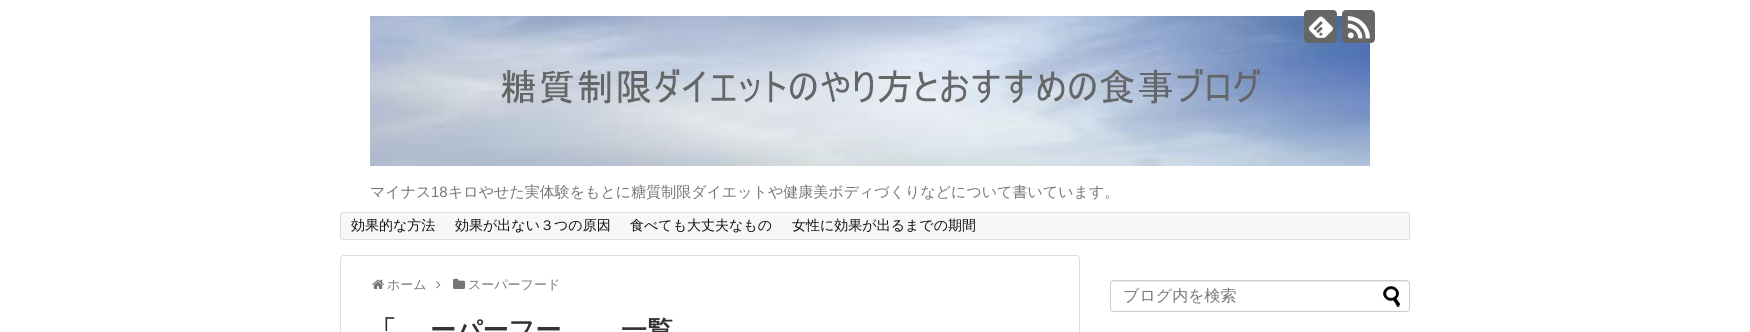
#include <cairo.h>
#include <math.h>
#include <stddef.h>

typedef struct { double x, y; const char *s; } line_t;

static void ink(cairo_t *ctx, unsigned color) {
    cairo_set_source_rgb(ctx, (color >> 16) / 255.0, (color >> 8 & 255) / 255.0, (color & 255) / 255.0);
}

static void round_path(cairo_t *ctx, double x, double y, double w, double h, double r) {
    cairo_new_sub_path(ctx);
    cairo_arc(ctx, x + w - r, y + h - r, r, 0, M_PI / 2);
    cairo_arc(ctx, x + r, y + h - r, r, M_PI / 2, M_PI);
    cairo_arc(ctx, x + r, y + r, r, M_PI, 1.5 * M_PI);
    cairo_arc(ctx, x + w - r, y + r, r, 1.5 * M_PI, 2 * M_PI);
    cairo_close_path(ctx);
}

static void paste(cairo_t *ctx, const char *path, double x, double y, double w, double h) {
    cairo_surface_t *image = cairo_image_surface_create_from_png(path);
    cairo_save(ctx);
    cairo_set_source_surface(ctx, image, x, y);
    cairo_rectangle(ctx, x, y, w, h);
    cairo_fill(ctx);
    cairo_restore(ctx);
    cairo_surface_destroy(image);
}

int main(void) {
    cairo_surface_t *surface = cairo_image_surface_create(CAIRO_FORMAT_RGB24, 1750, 332);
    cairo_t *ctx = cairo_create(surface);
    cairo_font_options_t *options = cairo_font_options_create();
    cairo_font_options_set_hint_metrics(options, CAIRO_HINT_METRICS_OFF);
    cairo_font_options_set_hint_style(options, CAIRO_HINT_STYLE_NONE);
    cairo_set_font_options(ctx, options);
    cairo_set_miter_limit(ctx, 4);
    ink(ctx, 0xFFFFFF);
    cairo_paint(ctx);
    paste(ctx, "media/3.png", 370, 16, 1000, 150);
    ink(ctx, 0x666666);
    round_path(ctx, 1304, 10, 33, 33, 4);
    cairo_fill(ctx);
    paste(ctx, "media/1.png", 1308, 16, 25, 22);
    round_path(ctx, 1342, 10, 33, 33, 4);
    cairo_fill(ctx);
    paste(ctx, "media/2.png", 1347, 16, 23, 23);
    cairo_select_font_face(ctx, "WenQuanYi Zen Hei Medium", CAIRO_FONT_SLANT_NORMAL, CAIRO_FONT_WEIGHT_NORMAL);
    cairo_set_font_size(ctx, 15);
    ink(ctx, 0x777777);
    cairo_move_to(ctx, 370, 197);
    cairo_show_text(ctx, "マイナス");
    cairo_select_font_face(ctx, "Liberation Sans", CAIRO_FONT_SLANT_NORMAL, CAIRO_FONT_WEIGHT_NORMAL);
    cairo_move_to(ctx, 431, 197);
    cairo_show_text(ctx, "18");
    cairo_select_font_face(ctx, "WenQuanYi Zen Hei Medium", CAIRO_FONT_SLANT_NORMAL, CAIRO_FONT_WEIGHT_NORMAL);
    cairo_move_to(ctx, 448, 197);
    cairo_show_text(ctx, "キロやせた実体験をもとに糖質制限ダイエットや健康美ボディづくりなどについて書いています。");
    ink(ctx, 0xF7F7F7);
    round_path(ctx, 340.5, 212.5, 1069, 27, 2.5);
    cairo_fill_preserve(ctx);
    ink(ctx, 0xDDDDDD);
    cairo_set_line_width(ctx, 1);
    cairo_stroke(ctx);
    cairo_set_font_size(ctx, 14);
    ink(ctx, 0x111111);
    {
        static const line_t items[] = {
            {351, 230, "効果的な方法"},
            {455, 230, "効果が出ない３つの原因"},
            {630, 230, "食べても大丈夫なもの"},
            {792, 230, "女性に効果が出るまでの期間"},
        };
        for (size_t i = 0; i < sizeof items / sizeof *items; i++) {
            cairo_move_to(ctx, items[i].x, items[i].y);
            cairo_show_text(ctx, items[i].s);
        }
    }
    round_path(ctx, 340.5, 255.5, 739, 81, 3.5);
    ink(ctx, 0xDDDDDD);
    cairo_stroke(ctx);
    paste(ctx, "media/4.png", 372, 279, 12, 10);
    cairo_set_font_size(ctx, 13);
    ink(ctx, 0x777777);
    cairo_move_to(ctx, 387, 289);
    cairo_show_text(ctx, "ホーム");
    paste(ctx, "media/5.png", 436, 281, 5, 8);
    paste(ctx, "media/6.png", 453, 278, 13, 11);
    cairo_move_to(ctx, 468, 289);
    cairo_show_text(ctx, "スーパーフード");
    cairo_select_font_face(ctx, "WenQuanYi Zen Hei", CAIRO_FONT_SLANT_NORMAL, CAIRO_FONT_WEIGHT_BOLD);
    cairo_set_font_size(ctx, 26);
    ink(ctx, 0x333333);
    {
        static const line_t items[] = {
            {370, 339, "「"},
            {430, 339, "ーパーフー"},
            {621, 339, "一覧"},
        };
        for (size_t i = 0; i < sizeof items / sizeof *items; i++) {
            cairo_move_to(ctx, items[i].x, items[i].y);
            cairo_show_text(ctx, items[i].s);
        }
    }
    ink(ctx, 0xECECEC);
    cairo_new_path(ctx);
    cairo_move_to(ctx, 1114, 282);
    cairo_line_to(ctx, 1406, 282);
    cairo_curve_to(ctx, 1408, 282, 1409, 283, 1409, 285);
    cairo_line_to(ctx, 1408, 282);
    cairo_line_to(ctx, 1407, 281);
    cairo_line_to(ctx, 1114, 281);
    cairo_curve_to(ctx, 1112, 281, 1111, 283, 1111, 285);
    cairo_curve_to(ctx, 1111, 283, 1112, 282, 1114, 282);
    cairo_close_path(ctx);
    cairo_fill(ctx);
    round_path(ctx, 1110.5, 280.5, 299, 31, 3.5);
    ink(ctx, 0xCCCCCC);
    cairo_stroke(ctx);
    cairo_select_font_face(ctx, "WenQuanYi Zen Hei Medium", CAIRO_FONT_SLANT_NORMAL, CAIRO_FONT_WEIGHT_NORMAL);
    cairo_set_font_size(ctx, 16);
    ink(ctx, 0x777777);
    cairo_move_to(ctx, 1123, 301);
    cairo_show_text(ctx, "ブログ内を検索");
    paste(ctx, "media/7.png", 1383, 286, 17, 21);
    cairo_surface_write_to_png(surface, "image.png");
    cairo_font_options_destroy(options);
    cairo_destroy(ctx);
    cairo_surface_destroy(surface);
    return 0;
}
